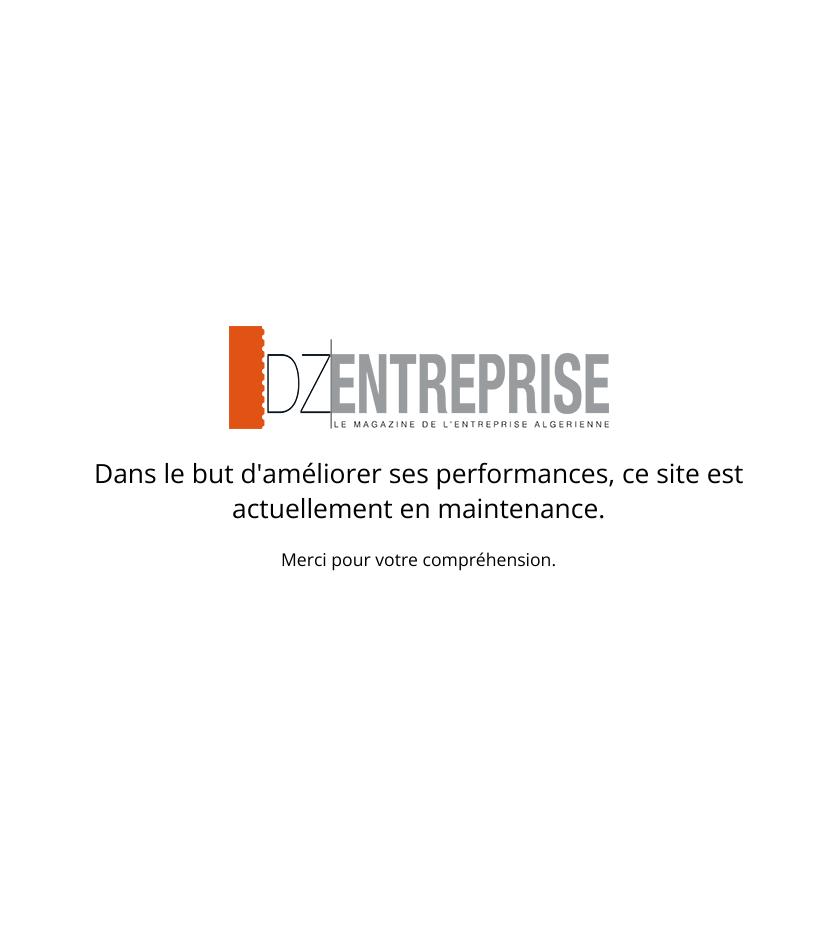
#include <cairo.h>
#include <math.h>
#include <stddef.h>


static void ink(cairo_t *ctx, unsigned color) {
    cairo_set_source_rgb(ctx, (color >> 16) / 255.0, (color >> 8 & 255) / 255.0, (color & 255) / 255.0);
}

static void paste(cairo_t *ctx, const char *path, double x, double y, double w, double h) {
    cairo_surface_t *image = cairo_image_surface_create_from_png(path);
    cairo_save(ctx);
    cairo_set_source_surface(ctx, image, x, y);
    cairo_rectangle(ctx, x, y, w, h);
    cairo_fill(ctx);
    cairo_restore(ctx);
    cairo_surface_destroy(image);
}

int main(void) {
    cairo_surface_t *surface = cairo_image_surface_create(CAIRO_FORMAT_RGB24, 837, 950);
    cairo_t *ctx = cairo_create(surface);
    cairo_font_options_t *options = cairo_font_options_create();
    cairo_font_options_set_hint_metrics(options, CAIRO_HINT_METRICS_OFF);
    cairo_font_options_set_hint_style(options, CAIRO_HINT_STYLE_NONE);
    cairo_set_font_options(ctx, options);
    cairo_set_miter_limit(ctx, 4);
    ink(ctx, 0xFFFFFF);
    cairo_paint(ctx);
    paste(ctx, "media/1.png", 229, 326, 380, 103);
    cairo_select_font_face(ctx, "Open Sans", CAIRO_FONT_SLANT_NORMAL, CAIRO_FONT_WEIGHT_NORMAL);
    cairo_set_font_size(ctx, 26.4);
    ink(ctx, 0x000000);
    cairo_move_to(ctx, 94, 483);
    cairo_show_text(ctx, "Dans le but d'améliorer ses performances, ce site est");
    cairo_move_to(ctx, 232, 518);
    cairo_show_text(ctx, "actuellement en maintenance.");
    cairo_set_font_size(ctx, 17.6);
    cairo_move_to(ctx, 281, 566);
    cairo_show_text(ctx, "Merci pour votre compréhension.");
    cairo_surface_write_to_png(surface, "image.png");
    cairo_font_options_destroy(options);
    cairo_destroy(ctx);
    cairo_surface_destroy(surface);
    return 0;
}
